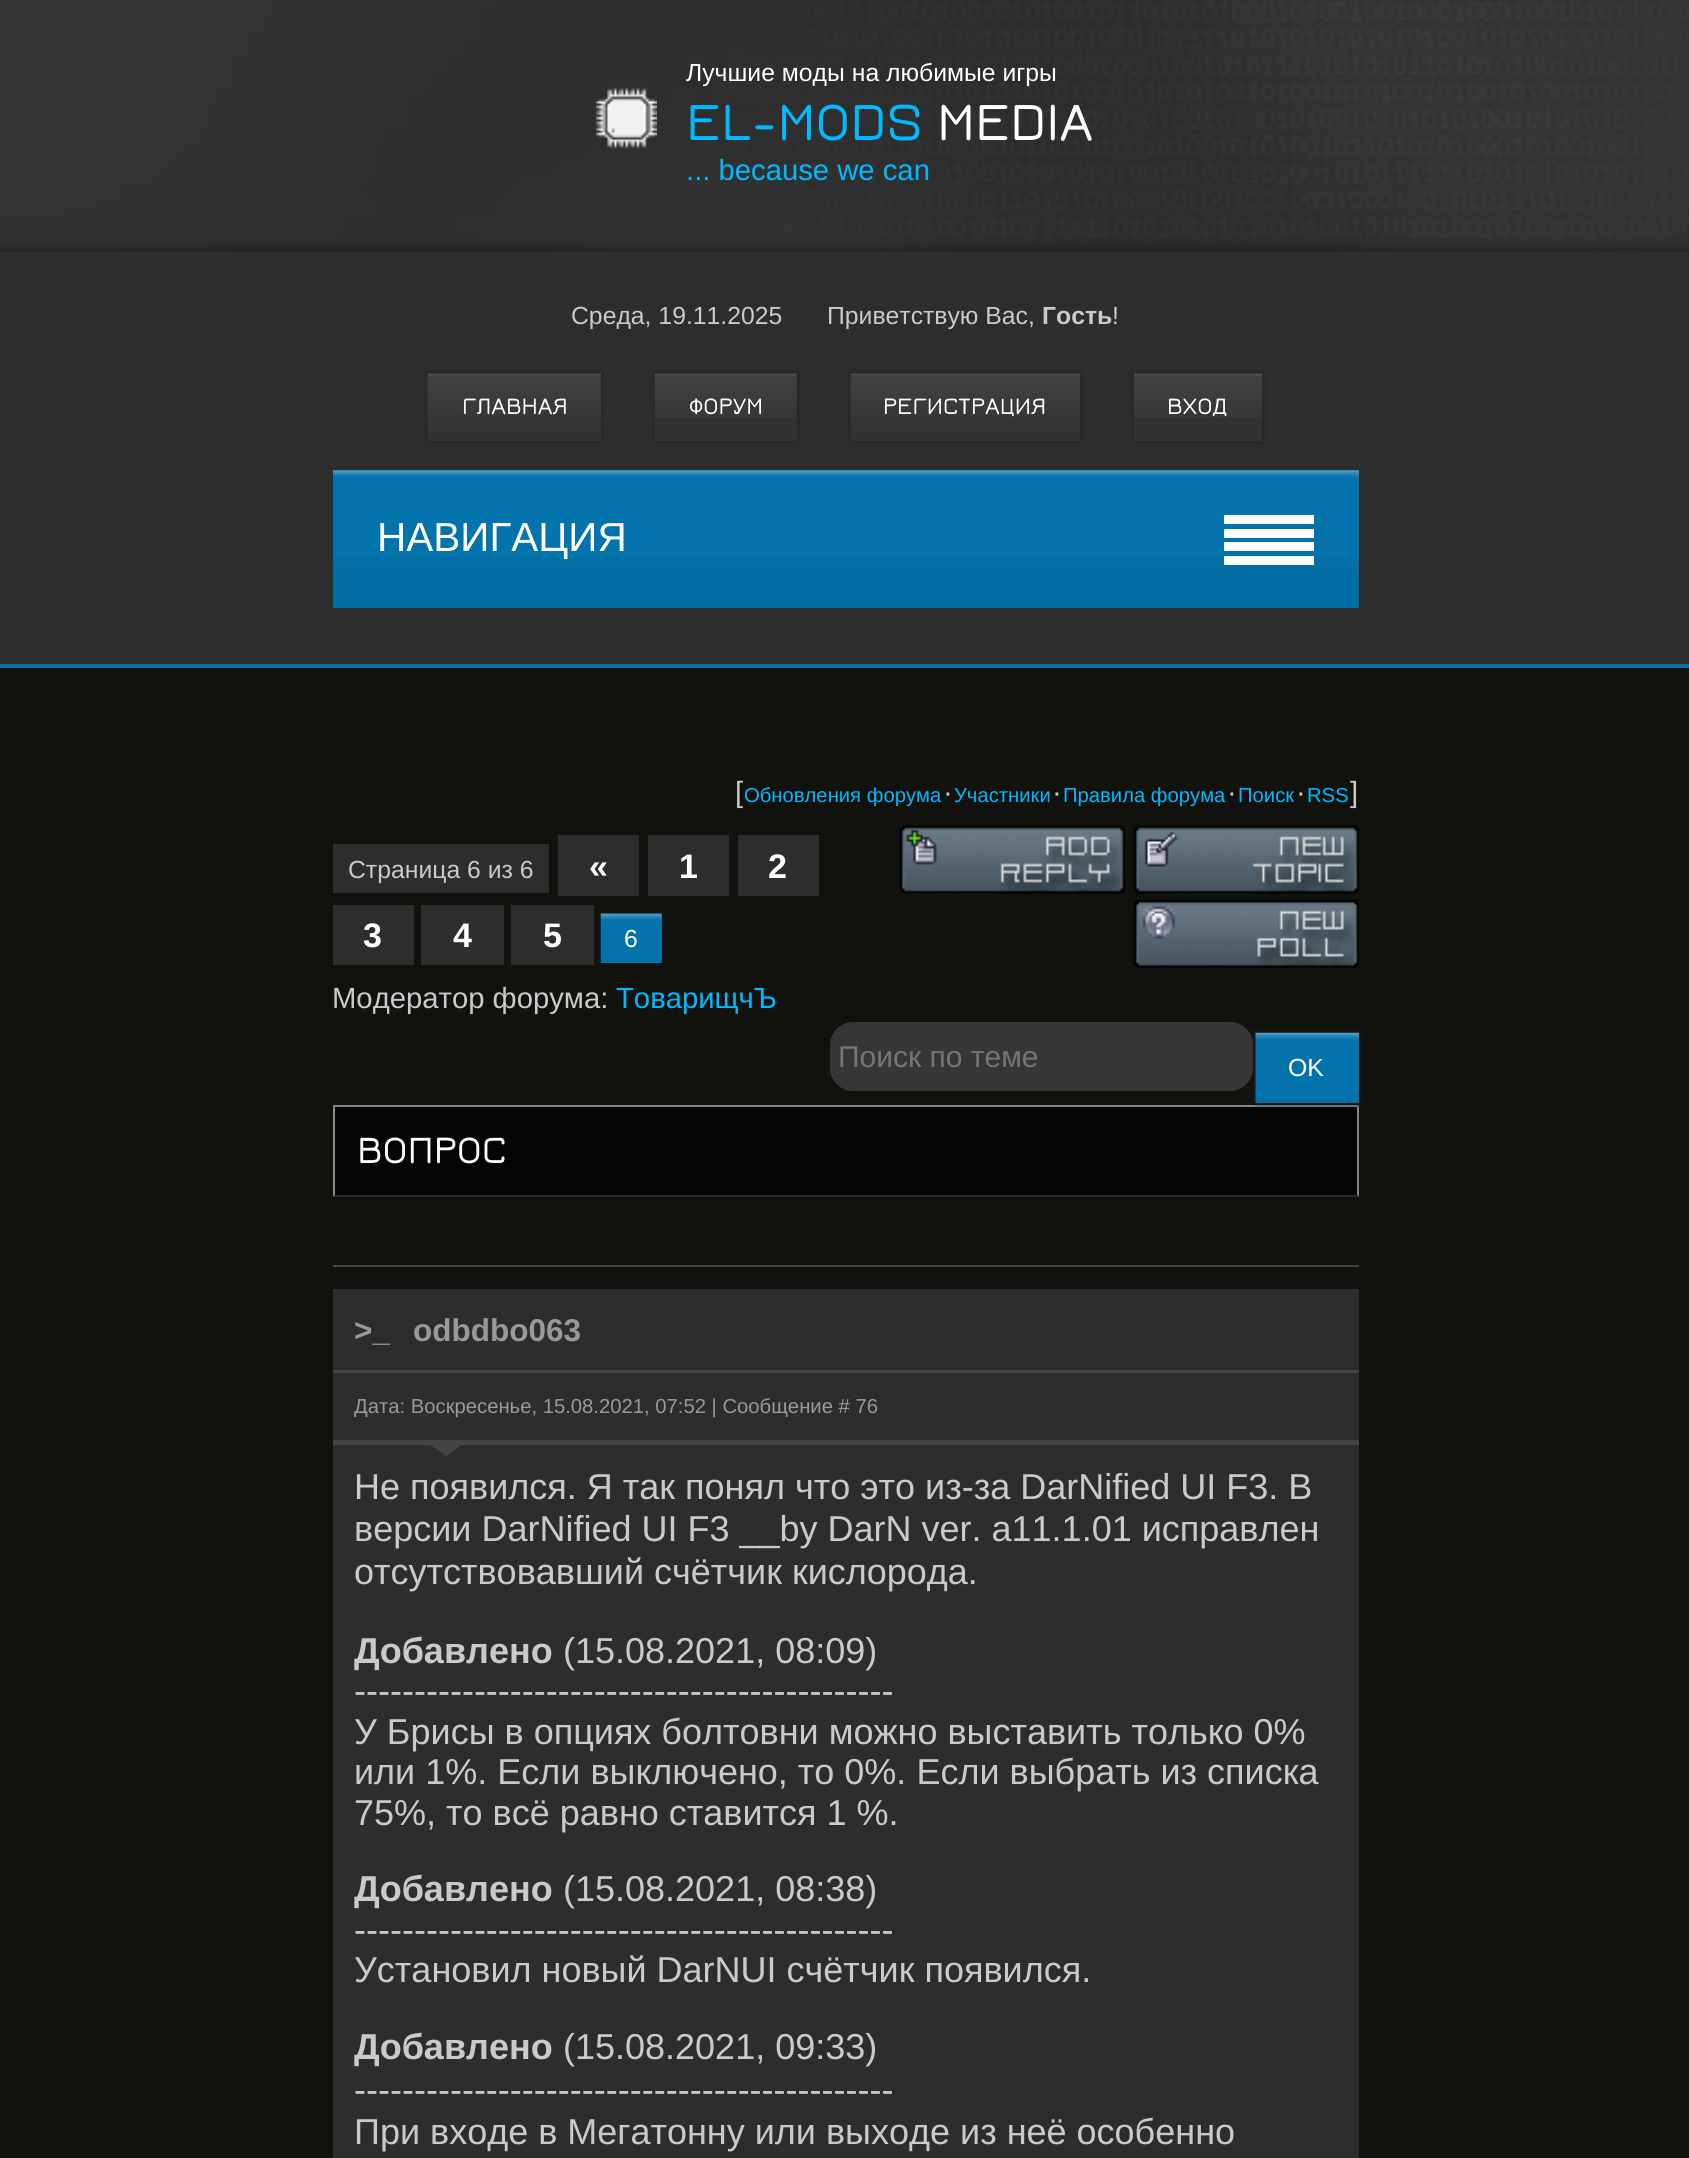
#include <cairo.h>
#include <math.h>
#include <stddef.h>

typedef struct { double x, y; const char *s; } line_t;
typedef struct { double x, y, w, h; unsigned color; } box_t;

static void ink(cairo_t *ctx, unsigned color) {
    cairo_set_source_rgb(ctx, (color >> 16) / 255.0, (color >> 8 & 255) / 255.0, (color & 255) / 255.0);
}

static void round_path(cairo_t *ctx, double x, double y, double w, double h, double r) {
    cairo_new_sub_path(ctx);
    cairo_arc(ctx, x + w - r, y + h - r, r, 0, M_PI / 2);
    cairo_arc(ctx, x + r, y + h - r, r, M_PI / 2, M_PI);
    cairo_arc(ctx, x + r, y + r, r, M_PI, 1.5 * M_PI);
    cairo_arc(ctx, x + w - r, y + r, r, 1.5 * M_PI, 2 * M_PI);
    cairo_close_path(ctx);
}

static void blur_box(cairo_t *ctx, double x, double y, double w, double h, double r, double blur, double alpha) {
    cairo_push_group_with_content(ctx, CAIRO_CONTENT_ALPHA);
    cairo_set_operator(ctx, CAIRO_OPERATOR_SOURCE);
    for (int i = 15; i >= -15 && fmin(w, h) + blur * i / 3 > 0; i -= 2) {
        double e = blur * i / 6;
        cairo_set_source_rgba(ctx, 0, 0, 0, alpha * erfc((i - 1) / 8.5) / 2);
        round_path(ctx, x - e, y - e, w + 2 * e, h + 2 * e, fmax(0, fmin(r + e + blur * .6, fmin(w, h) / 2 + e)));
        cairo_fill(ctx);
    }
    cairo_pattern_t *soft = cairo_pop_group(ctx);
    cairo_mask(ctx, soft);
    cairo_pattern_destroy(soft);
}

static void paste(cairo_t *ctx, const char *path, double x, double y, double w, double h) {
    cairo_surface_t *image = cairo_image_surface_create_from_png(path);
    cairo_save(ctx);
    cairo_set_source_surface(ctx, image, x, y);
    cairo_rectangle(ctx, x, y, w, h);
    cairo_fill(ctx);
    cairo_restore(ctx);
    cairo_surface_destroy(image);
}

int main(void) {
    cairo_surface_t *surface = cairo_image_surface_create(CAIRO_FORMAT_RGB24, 1689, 2158);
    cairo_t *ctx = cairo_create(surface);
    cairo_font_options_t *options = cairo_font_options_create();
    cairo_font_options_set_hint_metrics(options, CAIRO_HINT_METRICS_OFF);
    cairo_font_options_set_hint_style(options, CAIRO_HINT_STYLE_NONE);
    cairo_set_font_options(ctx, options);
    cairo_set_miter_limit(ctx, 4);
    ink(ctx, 0x2D2D2D);
    cairo_paint(ctx);
    paste(ctx, "media/1.png", 0, 0, 1689, 252);
    paste(ctx, "media/2.png", 596, 87, 61, 62);
    cairo_select_font_face(ctx, "Liberation Sans", CAIRO_FONT_SLANT_NORMAL, CAIRO_FONT_WEIGHT_NORMAL);
    cairo_set_font_size(ctx, 24.75);
    ink(ctx, 0xFFFFFF);
    cairo_move_to(ctx, 686, 81);
    cairo_show_text(ctx, "Лучшие моды на любимые игры");
    cairo_select_font_face(ctx, "Jura SemiBold", CAIRO_FONT_SLANT_NORMAL, CAIRO_FONT_WEIGHT_NORMAL);
    cairo_set_font_size(ctx, 56.25);
    ink(ctx, 0x00BAFF);
    cairo_move_to(ctx, 686, 140);
    cairo_show_text(ctx, "EL-MODS");
    ink(ctx, 0xFFFFFF);
    cairo_move_to(ctx, 937, 140);
    cairo_show_text(ctx, "MEDIA");
    cairo_select_font_face(ctx, "Liberation Sans", CAIRO_FONT_SLANT_NORMAL, CAIRO_FONT_WEIGHT_NORMAL);
    cairo_set_font_size(ctx, 29.25);
    ink(ctx, 0x00BAFF);
    cairo_move_to(ctx, 686, 180);
    cairo_show_text(ctx, "... because we can");
    cairo_set_font_size(ctx, 24.75);
    ink(ctx, 0xCACACA);
    cairo_move_to(ctx, 571, 324);
    cairo_show_text(ctx, "Среда, 19.11.2025");
    cairo_move_to(ctx, 827, 324);
    cairo_show_text(ctx, "Приветствую Вас,");
    cairo_select_font_face(ctx, "Liberation Sans", CAIRO_FONT_SLANT_NORMAL, CAIRO_FONT_WEIGHT_BOLD);
    cairo_move_to(ctx, 1042, 324);
    cairo_show_text(ctx, "Гость");
    cairo_select_font_face(ctx, "Liberation Sans", CAIRO_FONT_SLANT_NORMAL, CAIRO_FONT_WEIGHT_NORMAL);
    cairo_move_to(ctx, 1112, 324);
    cairo_show_text(ctx, "!");
    ink(ctx, 0x222222);
    blur_box(ctx, 428, 374, 173, 67, 0, 3.5, 1);
    ink(ctx, 0x323232);
    cairo_rectangle(ctx, 428, 374, 173, 67);
    cairo_fill(ctx);
    paste(ctx, "media/3.png", 427, 373, 174, 56);
    cairo_select_font_face(ctx, "Jura SemiBold", CAIRO_FONT_SLANT_NORMAL, CAIRO_FONT_WEIGHT_NORMAL);
    ink(ctx, 0xFFFFFF);
    cairo_move_to(ctx, 462, 414);
    cairo_show_text(ctx, "ГЛАВНАЯ");
    ink(ctx, 0x222222);
    blur_box(ctx, 655, 374, 142, 67, 0, 3.5, 1);
    ink(ctx, 0x323232);
    cairo_rectangle(ctx, 655, 374, 142, 67);
    cairo_fill(ctx);
    paste(ctx, "media/4.png", 654, 373, 143, 45);
    ink(ctx, 0xFFFFFF);
    cairo_move_to(ctx, 689, 414);
    cairo_show_text(ctx, "ФОРУМ");
    ink(ctx, 0x222222);
    blur_box(ctx, 851, 374, 229, 67, 0, 3.5, 1);
    ink(ctx, 0x323232);
    cairo_rectangle(ctx, 851, 429, 229, 12);
    cairo_fill(ctx);
    paste(ctx, "media/5.png", 850, 373, 230, 56);
    ink(ctx, 0xFFFFFF);
    cairo_move_to(ctx, 883, 414);
    cairo_show_text(ctx, "РЕГИСТРАЦИЯ");
    ink(ctx, 0x222222);
    blur_box(ctx, 1134, 374, 128, 67, 0, 3.5, 1);
    ink(ctx, 0x323232);
    cairo_rectangle(ctx, 1134, 418, 128, 23);
    cairo_fill(ctx);
    paste(ctx, "media/6.png", 1134, 373, 129, 45);
    ink(ctx, 0xFFFFFF);
    cairo_move_to(ctx, 1167, 414);
    cairo_show_text(ctx, "ВХОД");
    ink(ctx, 0x0473AC);
    cairo_rectangle(ctx, 0, 664, 1689, 4);
    cairo_fill(ctx);
    ink(ctx, 0x046DA3);
    cairo_rectangle(ctx, 333, 470, 1026, 138);
    cairo_fill(ctx);
    paste(ctx, "media/7.png", 333, 470, 1026, 95);
    cairo_select_font_face(ctx, "Liberation Sans", CAIRO_FONT_SLANT_NORMAL, CAIRO_FONT_WEIGHT_NORMAL);
    cairo_set_font_size(ctx, 40.5);
    ink(ctx, 0xFFFFFF);
    cairo_move_to(ctx, 377, 551);
    cairo_show_text(ctx, "НАВИГАЦИЯ");
    {
        static const box_t items[] = {
            {1224, 515, 90, 9, 0xFFFFFF},
            {1224, 529, 90, 9, 0xFFFFFF},
            {1224, 542, 90, 9, 0xFFFFFF},
            {1224, 556, 90, 9, 0xFFFFFF},
            {0, 668, 1689, 1490, 0x11120E},
        };
        for (size_t i = 0; i < sizeof items / sizeof *items; i++) {
            ink(ctx, items[i].color);
            cairo_rectangle(ctx, items[i].x, items[i].y, items[i].w, items[i].h);
            cairo_fill(ctx);
        }
    }
    cairo_set_font_size(ctx, 29.25);
    ink(ctx, 0xCACACA);
    cairo_move_to(ctx, 735, 802);
    cairo_show_text(ctx, "[");
    cairo_set_font_size(ctx, 20.25);
    ink(ctx, 0x00BAFF);
    cairo_move_to(ctx, 744, 802);
    cairo_show_text(ctx, "Обновления форума");
    cairo_set_font_size(ctx, 29.25);
    ink(ctx, 0xCACACA);
    cairo_move_to(ctx, 943, 802);
    cairo_show_text(ctx, "·");
    cairo_set_font_size(ctx, 20.25);
    ink(ctx, 0x00BAFF);
    cairo_move_to(ctx, 954, 802);
    cairo_show_text(ctx, "Участники");
    cairo_set_font_size(ctx, 29.25);
    ink(ctx, 0xCACACA);
    cairo_move_to(ctx, 1052, 802);
    cairo_show_text(ctx, "·");
    cairo_set_font_size(ctx, 20.25);
    ink(ctx, 0x00BAFF);
    cairo_move_to(ctx, 1063, 802);
    cairo_show_text(ctx, "Правила форума");
    cairo_set_font_size(ctx, 29.25);
    ink(ctx, 0xCACACA);
    cairo_move_to(ctx, 1227, 802);
    cairo_show_text(ctx, "·");
    cairo_set_font_size(ctx, 20.25);
    ink(ctx, 0x00BAFF);
    cairo_move_to(ctx, 1238, 802);
    cairo_show_text(ctx, "Поиск");
    cairo_set_font_size(ctx, 29.25);
    ink(ctx, 0xCACACA);
    cairo_move_to(ctx, 1296, 802);
    cairo_show_text(ctx, "·");
    cairo_set_font_size(ctx, 20.25);
    ink(ctx, 0x00BAFF);
    cairo_move_to(ctx, 1307, 802);
    cairo_show_text(ctx, "RSS");
    cairo_set_font_size(ctx, 29.25);
    ink(ctx, 0xCACACA);
    cairo_move_to(ctx, 1350, 802);
    cairo_show_text(ctx, "]");
    ink(ctx, 0x2D2D2D);
    cairo_rectangle(ctx, 333, 844, 216, 49);
    cairo_fill(ctx);
    cairo_set_font_size(ctx, 24.75);
    ink(ctx, 0xCACACA);
    cairo_move_to(ctx, 348, 878);
    cairo_show_text(ctx, "Страница 6 из 6");
    ink(ctx, 0x2D2D2D);
    cairo_rectangle(ctx, 558, 835, 81, 61);
    cairo_fill(ctx);
    cairo_select_font_face(ctx, "Liberation Sans", CAIRO_FONT_SLANT_NORMAL, CAIRO_FONT_WEIGHT_BOLD);
    cairo_set_font_size(ctx, 34);
    ink(ctx, 0xFFFFFF);
    cairo_move_to(ctx, 589, 878);
    cairo_show_text(ctx, "«");
    ink(ctx, 0x2D2D2D);
    cairo_rectangle(ctx, 648, 835, 81, 61);
    cairo_fill(ctx);
    ink(ctx, 0xFFFFFF);
    cairo_move_to(ctx, 679, 878);
    cairo_show_text(ctx, "1");
    ink(ctx, 0x2D2D2D);
    cairo_rectangle(ctx, 738, 835, 81, 61);
    cairo_fill(ctx);
    ink(ctx, 0xFFFFFF);
    cairo_move_to(ctx, 768, 878);
    cairo_show_text(ctx, "2");
    ink(ctx, 0x2D2D2D);
    cairo_rectangle(ctx, 333, 905, 81, 60);
    cairo_fill(ctx);
    ink(ctx, 0xFFFFFF);
    cairo_move_to(ctx, 363, 947);
    cairo_show_text(ctx, "3");
    ink(ctx, 0x2D2D2D);
    cairo_rectangle(ctx, 421, 905, 83, 60);
    cairo_fill(ctx);
    ink(ctx, 0xFFFFFF);
    cairo_move_to(ctx, 453, 947);
    cairo_show_text(ctx, "4");
    ink(ctx, 0x2D2D2D);
    cairo_rectangle(ctx, 511, 905, 83, 60);
    cairo_fill(ctx);
    ink(ctx, 0xFFFFFF);
    cairo_move_to(ctx, 543, 947);
    cairo_show_text(ctx, "5");
    ink(ctx, 0x046DA3);
    cairo_rectangle(ctx, 661, 914, 1, 49);
    cairo_fill(ctx);
    paste(ctx, "media/8.png", 600, 913, 62, 50);
    cairo_select_font_face(ctx, "Liberation Sans", CAIRO_FONT_SLANT_NORMAL, CAIRO_FONT_WEIGHT_NORMAL);
    cairo_set_font_size(ctx, 24.75);
    ink(ctx, 0xFFFFFF);
    cairo_move_to(ctx, 624, 947);
    cairo_show_text(ctx, "6");
    paste(ctx, "media/9.png", 900, 825, 225, 69);
    paste(ctx, "media/10.png", 1134, 825, 225, 69);
    paste(ctx, "media/11.png", 1134, 900, 225, 68);
    cairo_set_font_size(ctx, 29.25);
    ink(ctx, 0xCACACA);
    cairo_move_to(ctx, 332, 1008);
    cairo_show_text(ctx, "Модератор форума:");
    ink(ctx, 0x00BAFF);
    cairo_move_to(ctx, 616, 1008);
    cairo_show_text(ctx, "ТоварищчЪ");
    ink(ctx, 0x363636);
    round_path(ctx, 830, 1022, 423, 69, 23);
    cairo_fill(ctx);
    cairo_set_font_size(ctx, 30);
    ink(ctx, 0x757575);
    cairo_move_to(ctx, 838, 1067);
    cairo_show_text(ctx, "Поиск по теме");
    ink(ctx, 0x050504);
    cairo_rectangle(ctx, 333, 1105, 1026, 92);
    cairo_fill(ctx);
    ink(ctx, 0x878786);
    cairo_new_path(ctx);
    cairo_move_to(ctx, 333, 1105);
    cairo_line_to(ctx, 1359, 1105);
    cairo_line_to(ctx, 1357, 1107);
    cairo_line_to(ctx, 335, 1107);
    cairo_close_path(ctx);
    cairo_fill(ctx);
    cairo_set_source_rgba(ctx, 0.745, 0.745, 0.745, 0.7);
    cairo_new_path(ctx);
    cairo_move_to(ctx, 1359, 1105);
    cairo_line_to(ctx, 1359, 1197);
    cairo_line_to(ctx, 1357, 1195);
    cairo_line_to(ctx, 1357, 1107);
    cairo_close_path(ctx);
    cairo_fill(ctx);
    ink(ctx, 0x222222);
    blur_box(ctx, 1256, 1033, 103, 70, 0, 3.5, 1);
    ink(ctx, 0x046DA3);
    cairo_rectangle(ctx, 1256, 1102, 103, 1);
    cairo_fill(ctx);
    paste(ctx, "media/12.png", 1255, 1032, 104, 71);
    cairo_set_font_size(ctx, 24.75);
    ink(ctx, 0xFFFFFF);
    cairo_move_to(ctx, 1288, 1076);
    cairo_show_text(ctx, "OK");
    ink(ctx, 0x292929);
    cairo_new_path(ctx);
    cairo_move_to(ctx, 1359, 1197);
    cairo_line_to(ctx, 333, 1197);
    cairo_line_to(ctx, 335, 1195);
    cairo_line_to(ctx, 1357, 1195);
    cairo_close_path(ctx);
    cairo_fill(ctx);
    cairo_set_source_rgba(ctx, 0.745, 0.745, 0.745, 0.7);
    cairo_new_path(ctx);
    cairo_move_to(ctx, 333, 1197);
    cairo_line_to(ctx, 333, 1105);
    cairo_line_to(ctx, 335, 1107);
    cairo_line_to(ctx, 335, 1195);
    cairo_close_path(ctx);
    cairo_fill(ctx);
    cairo_select_font_face(ctx, "Jura SemiBold", CAIRO_FONT_SLANT_NORMAL, CAIRO_FONT_WEIGHT_NORMAL);
    cairo_set_font_size(ctx, 40.5);
    ink(ctx, 0xFFFFFF);
    cairo_move_to(ctx, 357, 1163);
    cairo_show_text(ctx, "ВОПРОС");
    {
        static const box_t items[] = {
            {333, 1265, 1026, 2, 0x444444},
            {333, 1289, 1026, 81, 0x2D2D2D},
            {333, 1370, 1026, 3, 0x444444},
        };
        for (size_t i = 0; i < sizeof items / sizeof *items; i++) {
            ink(ctx, items[i].color);
            cairo_rectangle(ctx, items[i].x, items[i].y, items[i].w, items[i].h);
            cairo_fill(ctx);
        }
    }
    cairo_select_font_face(ctx, "Liberation Sans", CAIRO_FONT_SLANT_NORMAL, CAIRO_FONT_WEIGHT_BOLD);
    cairo_set_font_size(ctx, 31.5);
    ink(ctx, 0x999999);
    cairo_move_to(ctx, 354, 1341);
    cairo_show_text(ctx, ">_");
    cairo_move_to(ctx, 413, 1341);
    cairo_show_text(ctx, "odbdbo063");
    ink(ctx, 0x2D2D2D);
    cairo_rectangle(ctx, 333, 1373, 1026, 67);
    cairo_fill(ctx);
    ink(ctx, 0x444444);
    cairo_rectangle(ctx, 333, 1440, 1026, 5);
    cairo_fill(ctx);
    cairo_select_font_face(ctx, "Liberation Sans", CAIRO_FONT_SLANT_NORMAL, CAIRO_FONT_WEIGHT_NORMAL);
    cairo_set_font_size(ctx, 20.25);
    ink(ctx, 0x999999);
    cairo_move_to(ctx, 354, 1413);
    cairo_show_text(ctx, "Дата: Воскресенье, 15.08.2021, 07:52 | Сообщение # 76");
    ink(ctx, 0x2D2D2D);
    cairo_rectangle(ctx, 333, 1445, 1026, 713);
    cairo_fill(ctx);
    ink(ctx, 0x444444);
    cairo_new_path(ctx);
    cairo_move_to(ctx, 423, 1440);
    cairo_line_to(ctx, 468, 1440);
    cairo_line_to(ctx, 446, 1456);
    cairo_close_path(ctx);
    cairo_fill(ctx);
    cairo_set_font_size(ctx, 36);
    ink(ctx, 0xCACACA);
    {
        static const line_t items[] = {
            {354, 1499, "Не появился. Я так понял что это из-за DarNified UI F3. В"},
            {354, 1541, "версии DarNified UI F3 __by DarN ver. a11.1.01 исправлен"},
            {354, 1584, "отсутствовавший счётчик кислорода."},
        };
        for (size_t i = 0; i < sizeof items / sizeof *items; i++) {
            cairo_move_to(ctx, items[i].x, items[i].y);
            cairo_show_text(ctx, items[i].s);
        }
    }
    cairo_select_font_face(ctx, "Liberation Sans", CAIRO_FONT_SLANT_NORMAL, CAIRO_FONT_WEIGHT_BOLD);
    cairo_move_to(ctx, 354, 1663);
    cairo_show_text(ctx, "Добавлено");
    cairo_select_font_face(ctx, "Liberation Sans", CAIRO_FONT_SLANT_NORMAL, CAIRO_FONT_WEIGHT_NORMAL);
    {
        static const line_t items[] = {
            {563, 1663, "(15.08.2021, 08:09)"},
            {354, 1703, "---------------------------------------------"},
            {354, 1744, "У Брисы в опциях болтовни можно выставить только 0%"},
            {354, 1784, "или 1%. Если выключено, то 0%. Если выбрать из списка"},
            {354, 1825, "75%, то всё равно ставится 1 %."},
        };
        for (size_t i = 0; i < sizeof items / sizeof *items; i++) {
            cairo_move_to(ctx, items[i].x, items[i].y);
            cairo_show_text(ctx, items[i].s);
        }
    }
    cairo_select_font_face(ctx, "Liberation Sans", CAIRO_FONT_SLANT_NORMAL, CAIRO_FONT_WEIGHT_BOLD);
    cairo_move_to(ctx, 354, 1901);
    cairo_show_text(ctx, "Добавлено");
    cairo_select_font_face(ctx, "Liberation Sans", CAIRO_FONT_SLANT_NORMAL, CAIRO_FONT_WEIGHT_NORMAL);
    {
        static const line_t items[] = {
            {563, 1901, "(15.08.2021, 08:38)"},
            {354, 1942, "---------------------------------------------"},
            {354, 1982, "Установил новый DarNUI счётчик появился."},
        };
        for (size_t i = 0; i < sizeof items / sizeof *items; i++) {
            cairo_move_to(ctx, items[i].x, items[i].y);
            cairo_show_text(ctx, items[i].s);
        }
    }
    cairo_select_font_face(ctx, "Liberation Sans", CAIRO_FONT_SLANT_NORMAL, CAIRO_FONT_WEIGHT_BOLD);
    cairo_move_to(ctx, 354, 2059);
    cairo_show_text(ctx, "Добавлено");
    cairo_select_font_face(ctx, "Liberation Sans", CAIRO_FONT_SLANT_NORMAL, CAIRO_FONT_WEIGHT_NORMAL);
    {
        static const line_t items[] = {
            {563, 2059, "(15.08.2021, 09:33)"},
            {354, 2102, "---------------------------------------------"},
            {354, 2144, "При входе в Мегатонну или выходе из неё особенно"},
        };
        for (size_t i = 0; i < sizeof items / sizeof *items; i++) {
            cairo_move_to(ctx, items[i].x, items[i].y);
            cairo_show_text(ctx, items[i].s);
        }
    }
    cairo_surface_write_to_png(surface, "image.png");
    cairo_font_options_destroy(options);
    cairo_destroy(ctx);
    cairo_surface_destroy(surface);
    return 0;
}
